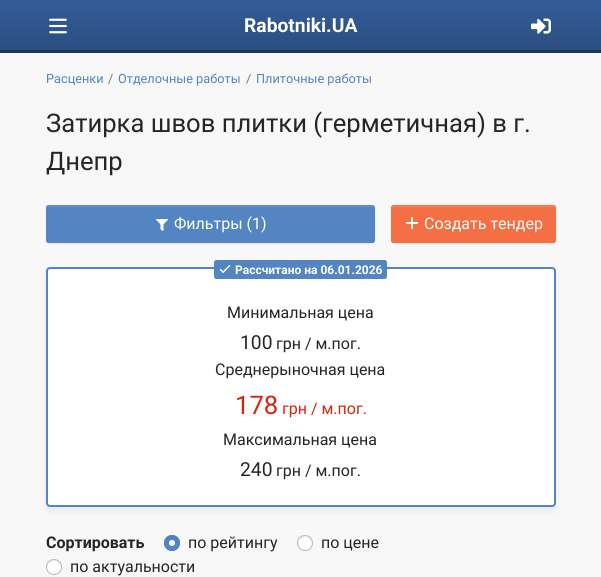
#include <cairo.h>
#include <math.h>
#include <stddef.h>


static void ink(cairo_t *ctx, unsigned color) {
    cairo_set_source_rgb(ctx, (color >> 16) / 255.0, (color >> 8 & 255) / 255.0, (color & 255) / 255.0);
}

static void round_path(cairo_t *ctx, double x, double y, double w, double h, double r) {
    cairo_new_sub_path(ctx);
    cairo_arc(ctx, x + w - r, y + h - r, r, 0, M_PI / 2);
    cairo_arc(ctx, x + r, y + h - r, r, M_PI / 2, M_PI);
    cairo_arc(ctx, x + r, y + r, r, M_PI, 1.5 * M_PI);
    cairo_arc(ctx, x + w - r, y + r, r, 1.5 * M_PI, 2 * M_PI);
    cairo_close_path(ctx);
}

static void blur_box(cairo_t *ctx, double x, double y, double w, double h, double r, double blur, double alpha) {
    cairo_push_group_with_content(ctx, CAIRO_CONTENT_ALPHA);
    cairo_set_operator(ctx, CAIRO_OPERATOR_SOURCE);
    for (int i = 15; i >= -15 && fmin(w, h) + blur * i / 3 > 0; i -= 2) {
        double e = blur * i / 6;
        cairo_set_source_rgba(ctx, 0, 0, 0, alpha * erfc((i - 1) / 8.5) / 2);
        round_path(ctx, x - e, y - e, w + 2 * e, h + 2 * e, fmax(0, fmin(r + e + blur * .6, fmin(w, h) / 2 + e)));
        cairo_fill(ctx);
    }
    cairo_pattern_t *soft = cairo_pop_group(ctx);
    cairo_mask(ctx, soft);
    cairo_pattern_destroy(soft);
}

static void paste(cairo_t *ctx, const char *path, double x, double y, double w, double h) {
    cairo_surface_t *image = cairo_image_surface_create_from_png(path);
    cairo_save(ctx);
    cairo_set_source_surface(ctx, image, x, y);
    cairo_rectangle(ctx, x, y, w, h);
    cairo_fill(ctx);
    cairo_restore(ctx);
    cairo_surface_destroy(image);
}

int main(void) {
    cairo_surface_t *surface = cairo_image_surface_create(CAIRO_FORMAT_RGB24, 601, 577);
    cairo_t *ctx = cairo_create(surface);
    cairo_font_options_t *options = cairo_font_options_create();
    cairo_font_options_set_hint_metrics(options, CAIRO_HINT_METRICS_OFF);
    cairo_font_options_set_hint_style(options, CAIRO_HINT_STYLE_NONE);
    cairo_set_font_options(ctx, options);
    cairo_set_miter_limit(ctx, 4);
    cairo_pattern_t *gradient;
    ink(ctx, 0xF8F8F8);
    cairo_paint(ctx);
    gradient = cairo_pattern_create_linear(301, 0, 301, 50);
    cairo_pattern_add_color_stop_rgba(gradient, 0, 0.2, 0.361, 0.592, 1);
    cairo_pattern_add_color_stop_rgba(gradient, 1, 0.169, 0.306, 0.506, 1);
    cairo_set_source(ctx, gradient);
    cairo_pattern_destroy(gradient);
    cairo_rectangle(ctx, 0, 0, 601, 50);
    cairo_fill(ctx);
    ink(ctx, 0x1D3557);
    cairo_rectangle(ctx, 0, 50, 601, 3);
    cairo_fill(ctx);
    paste(ctx, "media/1.png", 49, 18, 18, 16);
    cairo_select_font_face(ctx, "Roboto", CAIRO_FONT_SLANT_NORMAL, CAIRO_FONT_WEIGHT_BOLD);
    cairo_set_font_size(ctx, 19.25);
    ink(ctx, 0xFFFFFF);
    cairo_move_to(ctx, 244, 32);
    cairo_show_text(ctx, "Rabotniki.UA");
    paste(ctx, "media/2.png", 531, 18, 20, 16);
    cairo_select_font_face(ctx, "Roboto", CAIRO_FONT_SLANT_NORMAL, CAIRO_FONT_WEIGHT_NORMAL);
    cairo_set_font_size(ctx, 12.75);
    ink(ctx, 0x5385C2);
    cairo_move_to(ctx, 46, 83);
    cairo_show_text(ctx, "Расценки");
    ink(ctx, 0x757575);
    cairo_move_to(ctx, 108, 83);
    cairo_show_text(ctx, "/");
    ink(ctx, 0x5385C2);
    cairo_move_to(ctx, 118, 83);
    cairo_show_text(ctx, "Отделочные работы");
    ink(ctx, 0x757575);
    cairo_move_to(ctx, 246, 83);
    cairo_show_text(ctx, "/");
    ink(ctx, 0x5385C2);
    cairo_move_to(ctx, 256, 83);
    cairo_show_text(ctx, "Плиточные работы");
    cairo_set_font_size(ctx, 25.6);
    ink(ctx, 0x252525);
    cairo_move_to(ctx, 46, 132);
    cairo_show_text(ctx, "Затирка швов плитки (герметичная) в г.");
    cairo_move_to(ctx, 46, 170);
    cairo_show_text(ctx, "Днепр");
    ink(ctx, 0x000000);
    blur_box(ctx, 46, 206, 329, 38, 2.5, 0.5, 0.07);
    ink(ctx, 0x5385C2);
    round_path(ctx, 46, 205, 329, 38, 2.5);
    cairo_fill(ctx);
    ink(ctx, 0x6D97CB);
    cairo_new_path(ctx);
    cairo_move_to(ctx, 48, 207);
    cairo_line_to(ctx, 373, 207);
    cairo_line_to(ctx, 374, 208);
    cairo_curve_to(ctx, 374, 207, 374, 206, 372, 206);
    cairo_line_to(ctx, 48, 206);
    cairo_line_to(ctx, 47, 207);
    cairo_line_to(ctx, 47, 208);
    cairo_close_path(ctx);
    cairo_fill(ctx);
    paste(ctx, "media/3.png", 156, 219, 12, 12);
    cairo_set_font_size(ctx, 16);
    ink(ctx, 0xFFFFFF);
    cairo_move_to(ctx, 174, 229);
    cairo_show_text(ctx, "Фильтры (1)");
    ink(ctx, 0x000000);
    blur_box(ctx, 391, 206, 165, 38, 2.5, 0.5, 0.07);
    ink(ctx, 0xF46F44);
    round_path(ctx, 391, 205, 165, 38, 2.5);
    cairo_fill(ctx);
    ink(ctx, 0xF68560);
    cairo_new_path(ctx);
    cairo_move_to(ctx, 393, 207);
    cairo_line_to(ctx, 554, 207);
    cairo_line_to(ctx, 555, 208);
    cairo_curve_to(ctx, 555, 207, 555, 206, 554, 206);
    cairo_line_to(ctx, 394, 206);
    cairo_curve_to(ctx, 392, 206, 392, 207, 392, 208);
    cairo_close_path(ctx);
    cairo_fill(ctx);
    paste(ctx, "media/4.png", 406, 217, 12, 12);
    ink(ctx, 0xFFFFFF);
    cairo_move_to(ctx, 424, 229);
    cairo_show_text(ctx, "Создать тендер");
    ink(ctx, 0x000000);
    blur_box(ctx, 46, 271, 510, 240, 4, 4, 0.07);
    ink(ctx, 0xFFFFFF);
    round_path(ctx, 47, 268, 508, 238, 3);
    cairo_fill_preserve(ctx);
    ink(ctx, 0x5385C2);
    cairo_stroke(ctx);
    round_path(ctx, 214, 260, 173, 19, 2.5);
    cairo_fill(ctx);
    paste(ctx, "media/5.png", 219, 264, 12, 10);
    cairo_select_font_face(ctx, "Roboto", CAIRO_FONT_SLANT_NORMAL, CAIRO_FONT_WEIGHT_BOLD);
    cairo_set_font_size(ctx, 12);
    ink(ctx, 0xFFFFFF);
    cairo_move_to(ctx, 235, 274);
    cairo_show_text(ctx, "Рассчитано на 06.01.2026");
    cairo_select_font_face(ctx, "Roboto", CAIRO_FONT_SLANT_NORMAL, CAIRO_FONT_WEIGHT_NORMAL);
    cairo_set_font_size(ctx, 16);
    ink(ctx, 0x252525);
    cairo_move_to(ctx, 227, 318);
    cairo_show_text(ctx, "Минимальная цена");
    cairo_set_font_size(ctx, 19.25);
    cairo_move_to(ctx, 240, 349);
    cairo_show_text(ctx, "100");
    cairo_set_font_size(ctx, 16);
    cairo_move_to(ctx, 276, 349);
    cairo_show_text(ctx, "грн / м.пог.");
    cairo_move_to(ctx, 215, 375);
    cairo_show_text(ctx, "Среднерыночная цена");
    cairo_set_font_size(ctx, 25.6);
    ink(ctx, 0xD8250C);
    cairo_move_to(ctx, 235, 414);
    cairo_show_text(ctx, "178");
    cairo_set_font_size(ctx, 16);
    cairo_move_to(ctx, 282, 414);
    cairo_show_text(ctx, "грн / м.пог.");
    ink(ctx, 0x252525);
    cairo_move_to(ctx, 223, 445);
    cairo_show_text(ctx, "Максимальная цена");
    cairo_set_font_size(ctx, 19.25);
    cairo_move_to(ctx, 240, 476);
    cairo_show_text(ctx, "240");
    cairo_set_font_size(ctx, 16);
    cairo_move_to(ctx, 276, 476);
    cairo_show_text(ctx, "грн / м.пог.");
    cairo_select_font_face(ctx, "Roboto", CAIRO_FONT_SLANT_NORMAL, CAIRO_FONT_WEIGHT_BOLD);
    cairo_move_to(ctx, 46, 548);
    cairo_show_text(ctx, "Сортировать");
    ink(ctx, 0x5385C2);
    cairo_new_path(ctx);
    cairo_arc(ctx, 172, 543, 8, 0, 2 * M_PI);
    cairo_fill(ctx);
    ink(ctx, 0x4D7BB3);
    cairo_new_path(ctx);
    cairo_move_to(ctx, 172, 537);
    cairo_curve_to(ctx, 177, 537, 179, 541.5, 178.5, 545);
    cairo_curve_to(ctx, 179, 543.5, 179, 542, 178.5, 540.5);
    cairo_curve_to(ctx, 175, 532, 162.5, 537, 165.5, 545);
    cairo_curve_to(ctx, 165, 541.5, 167, 537, 172, 537);
    cairo_close_path(ctx);
    cairo_fill(ctx);
    cairo_arc(ctx, 172, 543, 7.5, 0, 2 * M_PI);
    ink(ctx, 0x5385C2);
    cairo_set_line_width(ctx, 1);
    cairo_stroke(ctx);
    cairo_select_font_face(ctx, "Roboto", CAIRO_FONT_SLANT_NORMAL, CAIRO_FONT_WEIGHT_NORMAL);
    ink(ctx, 0x252525);
    cairo_move_to(ctx, 188, 548);
    cairo_show_text(ctx, "по рейтингу");
    ink(ctx, 0xFFFFFF);
    cairo_new_path(ctx);
    cairo_arc(ctx, 172, 543, 3, 0, 2 * M_PI);
    cairo_fill(ctx);
    cairo_arc(ctx, 305, 543, 8, 0, 2 * M_PI);
    cairo_fill(ctx);
    ink(ctx, 0xECECEC);
    cairo_new_path(ctx);
    cairo_move_to(ctx, 305, 537);
    cairo_curve_to(ctx, 310, 537, 312, 541.5, 311.5, 545);
    cairo_curve_to(ctx, 314.5, 537, 302, 532, 298.5, 540.5);
    cairo_curve_to(ctx, 298, 542, 298, 543.5, 298.5, 545);
    cairo_curve_to(ctx, 298, 541.5, 300, 537, 305, 537);
    cairo_close_path(ctx);
    cairo_fill(ctx);
    cairo_arc(ctx, 305, 543, 7.5, 0, 2 * M_PI);
    ink(ctx, 0xB5B5B5);
    cairo_stroke(ctx);
    ink(ctx, 0x252525);
    cairo_move_to(ctx, 321, 548);
    cairo_show_text(ctx, "по цене");
    ink(ctx, 0xFFFFFF);
    cairo_new_path(ctx);
    cairo_arc(ctx, 54, 567, 8, 0, 2 * M_PI);
    cairo_fill(ctx);
    ink(ctx, 0xECECEC);
    cairo_new_path(ctx);
    cairo_move_to(ctx, 54, 561);
    cairo_curve_to(ctx, 59, 561, 61, 565.5, 60.5, 569);
    cairo_curve_to(ctx, 61, 567.5, 61, 566, 60.5, 564.5);
    cairo_curve_to(ctx, 57, 556, 44.5, 561, 47.5, 569);
    cairo_curve_to(ctx, 47, 565.5, 49, 561, 54, 561);
    cairo_close_path(ctx);
    cairo_fill(ctx);
    cairo_arc(ctx, 54, 567, 7.5, 0, 2 * M_PI);
    ink(ctx, 0xB5B5B5);
    cairo_stroke(ctx);
    ink(ctx, 0x252525);
    cairo_move_to(ctx, 70, 572);
    cairo_show_text(ctx, "по актуальности");
    cairo_surface_write_to_png(surface, "image.png");
    cairo_font_options_destroy(options);
    cairo_destroy(ctx);
    cairo_surface_destroy(surface);
    return 0;
}
